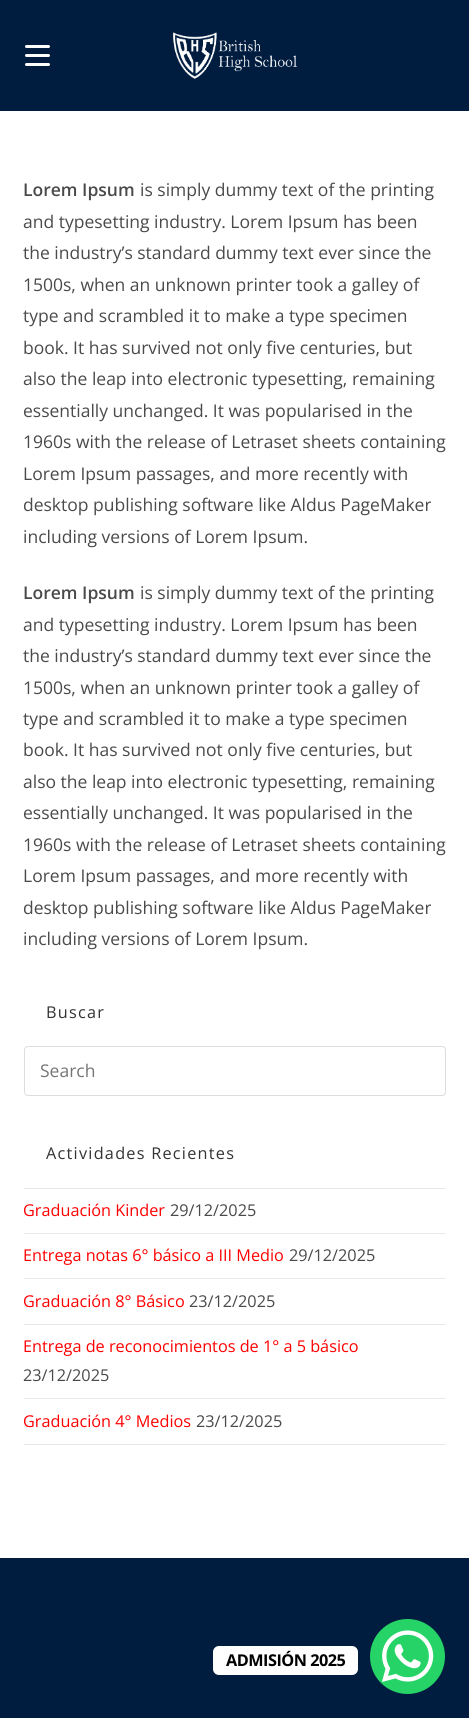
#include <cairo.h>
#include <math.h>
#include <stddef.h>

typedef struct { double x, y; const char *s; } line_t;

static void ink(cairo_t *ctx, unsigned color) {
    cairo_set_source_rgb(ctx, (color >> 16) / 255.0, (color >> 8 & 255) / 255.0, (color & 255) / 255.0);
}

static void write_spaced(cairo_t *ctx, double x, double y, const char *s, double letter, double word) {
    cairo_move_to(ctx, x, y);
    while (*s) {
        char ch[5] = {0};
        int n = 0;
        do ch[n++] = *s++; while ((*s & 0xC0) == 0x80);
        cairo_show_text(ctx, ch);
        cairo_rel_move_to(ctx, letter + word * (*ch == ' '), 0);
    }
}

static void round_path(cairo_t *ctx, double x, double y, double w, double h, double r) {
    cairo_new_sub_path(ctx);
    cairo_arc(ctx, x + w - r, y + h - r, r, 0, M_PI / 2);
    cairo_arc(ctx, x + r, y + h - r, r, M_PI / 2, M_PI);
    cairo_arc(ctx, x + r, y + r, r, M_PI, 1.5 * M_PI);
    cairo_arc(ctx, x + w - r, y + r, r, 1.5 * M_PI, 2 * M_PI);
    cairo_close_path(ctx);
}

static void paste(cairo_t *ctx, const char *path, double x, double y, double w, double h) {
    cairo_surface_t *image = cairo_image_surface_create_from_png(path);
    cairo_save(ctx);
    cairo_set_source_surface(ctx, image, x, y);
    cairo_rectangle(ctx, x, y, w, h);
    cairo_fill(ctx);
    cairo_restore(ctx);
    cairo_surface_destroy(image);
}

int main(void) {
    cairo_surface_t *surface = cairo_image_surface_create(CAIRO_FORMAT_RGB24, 469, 1718);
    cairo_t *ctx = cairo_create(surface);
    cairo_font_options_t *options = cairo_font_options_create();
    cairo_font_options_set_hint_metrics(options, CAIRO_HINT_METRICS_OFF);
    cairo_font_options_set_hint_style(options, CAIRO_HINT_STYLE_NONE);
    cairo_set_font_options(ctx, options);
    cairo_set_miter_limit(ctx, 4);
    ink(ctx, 0xFFFFFF);
    cairo_paint(ctx);
    ink(ctx, 0x001C3F);
    cairo_rectangle(ctx, 0, 0, 469, 111);
    cairo_fill(ctx);
    ink(ctx, 0xFFFFFF);
    round_path(ctx, 25, 45, 25, 3, 1.5);
    cairo_fill(ctx);
    round_path(ctx, 25, 54, 25, 3, 1.5);
    cairo_fill(ctx);
    round_path(ctx, 25, 63, 25, 3, 1.5);
    cairo_fill(ctx);
    paste(ctx, "media/1.png", 173, 32, 124, 47);
    cairo_select_font_face(ctx, "Open Sans SemiBold", CAIRO_FONT_SLANT_NORMAL, CAIRO_FONT_WEIGHT_NORMAL);
    cairo_set_font_size(ctx, 17.5);
    ink(ctx, 0x4A4A4A);
    cairo_move_to(ctx, 23, 196);
    cairo_show_text(ctx, "Lorem Ipsum");
    cairo_select_font_face(ctx, "Open Sans", CAIRO_FONT_SLANT_NORMAL, CAIRO_FONT_WEIGHT_NORMAL);
    {
        static const line_t items[] = {
            {140, 196, "is simply dummy text of the printing"},
            {23, 228, "and typesetting industry. Lorem Ipsum has been"},
            {23, 259, "the industry’s standard dummy text ever since the"},
            {23, 291, "1500s, when an unknown printer took a galley of"},
            {23, 322, "type and scrambled it to make a type specimen"},
            {23, 354, "book. It has survived not only five centuries, but"},
            {23, 385, "also the leap into electronic typesetting, remaining"},
            {23, 417, "essentially unchanged. It was popularised in the"},
            {23, 448, "1960s with the release of Letraset sheets containing"},
            {23, 480, "Lorem Ipsum passages, and more recently with"},
            {23, 511, "desktop publishing software like Aldus PageMaker"},
            {23, 543, "including versions of Lorem Ipsum."},
        };
        for (size_t i = 0; i < sizeof items / sizeof *items; i++) {
            cairo_move_to(ctx, items[i].x, items[i].y);
            cairo_show_text(ctx, items[i].s);
        }
    }
    cairo_select_font_face(ctx, "Open Sans SemiBold", CAIRO_FONT_SLANT_NORMAL, CAIRO_FONT_WEIGHT_NORMAL);
    cairo_move_to(ctx, 23, 599);
    cairo_show_text(ctx, "Lorem Ipsum");
    cairo_select_font_face(ctx, "Open Sans", CAIRO_FONT_SLANT_NORMAL, CAIRO_FONT_WEIGHT_NORMAL);
    {
        static const line_t items[] = {
            {140, 599, "is simply dummy text of the printing"},
            {23, 631, "and typesetting industry. Lorem Ipsum has been"},
            {23, 662, "the industry’s standard dummy text ever since the"},
            {23, 694, "1500s, when an unknown printer took a galley of"},
            {23, 725, "type and scrambled it to make a type specimen"},
            {23, 756, "book. It has survived not only five centuries, but"},
            {23, 788, "also the leap into electronic typesetting, remaining"},
            {23, 819, "essentially unchanged. It was popularised in the"},
            {23, 851, "1960s with the release of Letraset sheets containing"},
            {23, 882, "Lorem Ipsum passages, and more recently with"},
            {23, 914, "desktop publishing software like Aldus PageMaker"},
            {23, 945, "including versions of Lorem Ipsum."},
        };
        for (size_t i = 0; i < sizeof items / sizeof *items; i++) {
            cairo_move_to(ctx, items[i].x, items[i].y);
            cairo_show_text(ctx, items[i].s);
        }
    }
    cairo_set_font_size(ctx, 16.25);
    ink(ctx, 0x333333);
    write_spaced(ctx, 46, 1018, "Buscar", 1.25, 0);
    round_path(ctx, 24.5, 1046.5, 421, 49, 3.5);
    ink(ctx, 0xDDDDDD);
    cairo_set_line_width(ctx, 1);
    cairo_stroke(ctx);
    cairo_set_font_size(ctx, 17.5);
    ink(ctx, 0x757575);
    cairo_move_to(ctx, 40, 1077);
    cairo_show_text(ctx, "Search");
    cairo_set_font_size(ctx, 16.25);
    ink(ctx, 0x333333);
    write_spaced(ctx, 46, 1159, "Actividades Recientes", 1.25, 0);
    ink(ctx, 0xE9E9E9);
    cairo_rectangle(ctx, 24, 1188, 422, 1);
    cairo_fill(ctx);
    cairo_rectangle(ctx, 24, 1233, 422, 1);
    cairo_fill(ctx);
    ink(ctx, 0xFF0000);
    cairo_move_to(ctx, 23, 1216);
    cairo_show_text(ctx, "Graduación Kinder");
    ink(ctx, 0x4A4A4A);
    cairo_move_to(ctx, 170, 1216);
    cairo_show_text(ctx, "29/12/2025");
    ink(ctx, 0xE9E9E9);
    cairo_rectangle(ctx, 24, 1278, 422, 1);
    cairo_fill(ctx);
    ink(ctx, 0xFF0000);
    cairo_move_to(ctx, 23, 1261);
    cairo_show_text(ctx, "Entrega notas 6° básico a III Medio");
    ink(ctx, 0x4A4A4A);
    cairo_move_to(ctx, 289, 1261);
    cairo_show_text(ctx, "29/12/2025");
    ink(ctx, 0xE9E9E9);
    cairo_rectangle(ctx, 24, 1324, 422, 1);
    cairo_fill(ctx);
    ink(ctx, 0xFF0000);
    cairo_move_to(ctx, 23, 1307);
    cairo_show_text(ctx, "Graduación 8° Básico");
    ink(ctx, 0x4A4A4A);
    cairo_move_to(ctx, 189, 1307);
    cairo_show_text(ctx, "23/12/2025");
    ink(ctx, 0xE9E9E9);
    cairo_rectangle(ctx, 24, 1398, 422, 1);
    cairo_fill(ctx);
    ink(ctx, 0xFF0000);
    cairo_move_to(ctx, 23, 1352);
    cairo_show_text(ctx, "Entrega de reconocimientos de 1° a 5 básico");
    ink(ctx, 0x4A4A4A);
    cairo_move_to(ctx, 23, 1381);
    cairo_show_text(ctx, "23/12/2025");
    ink(ctx, 0xE9E9E9);
    cairo_rectangle(ctx, 24, 1444, 422, 1);
    cairo_fill(ctx);
    ink(ctx, 0xFF0000);
    cairo_move_to(ctx, 23, 1427);
    cairo_show_text(ctx, "Graduación 4° Medios");
    ink(ctx, 0x4A4A4A);
    cairo_move_to(ctx, 196, 1427);
    cairo_show_text(ctx, "23/12/2025");
    ink(ctx, 0x001C3F);
    cairo_rectangle(ctx, 0, 1558, 469, 160);
    cairo_fill(ctx);
    ink(ctx, 0xFFFFFF);
    round_path(ctx, 213, 1646, 145, 29, 6);
    cairo_fill(ctx);
    cairo_select_font_face(ctx, "Open Sans", CAIRO_FONT_SLANT_NORMAL, CAIRO_FONT_WEIGHT_BOLD);
    ink(ctx, 0x000000);
    write_spaced(ctx, 226, 1666, "ADMISIÓN 2025", -0.5, 0);
    ink(ctx, 0x25D366);
    cairo_new_path(ctx);
    cairo_arc(ctx, 407.5, 1656.5, 37.5, 0, 2 * M_PI);
    cairo_fill(ctx);
    paste(ctx, "media/2.png", 382, 1630, 52, 52);
    cairo_surface_write_to_png(surface, "image.png");
    cairo_font_options_destroy(options);
    cairo_destroy(ctx);
    cairo_surface_destroy(surface);
    return 0;
}
